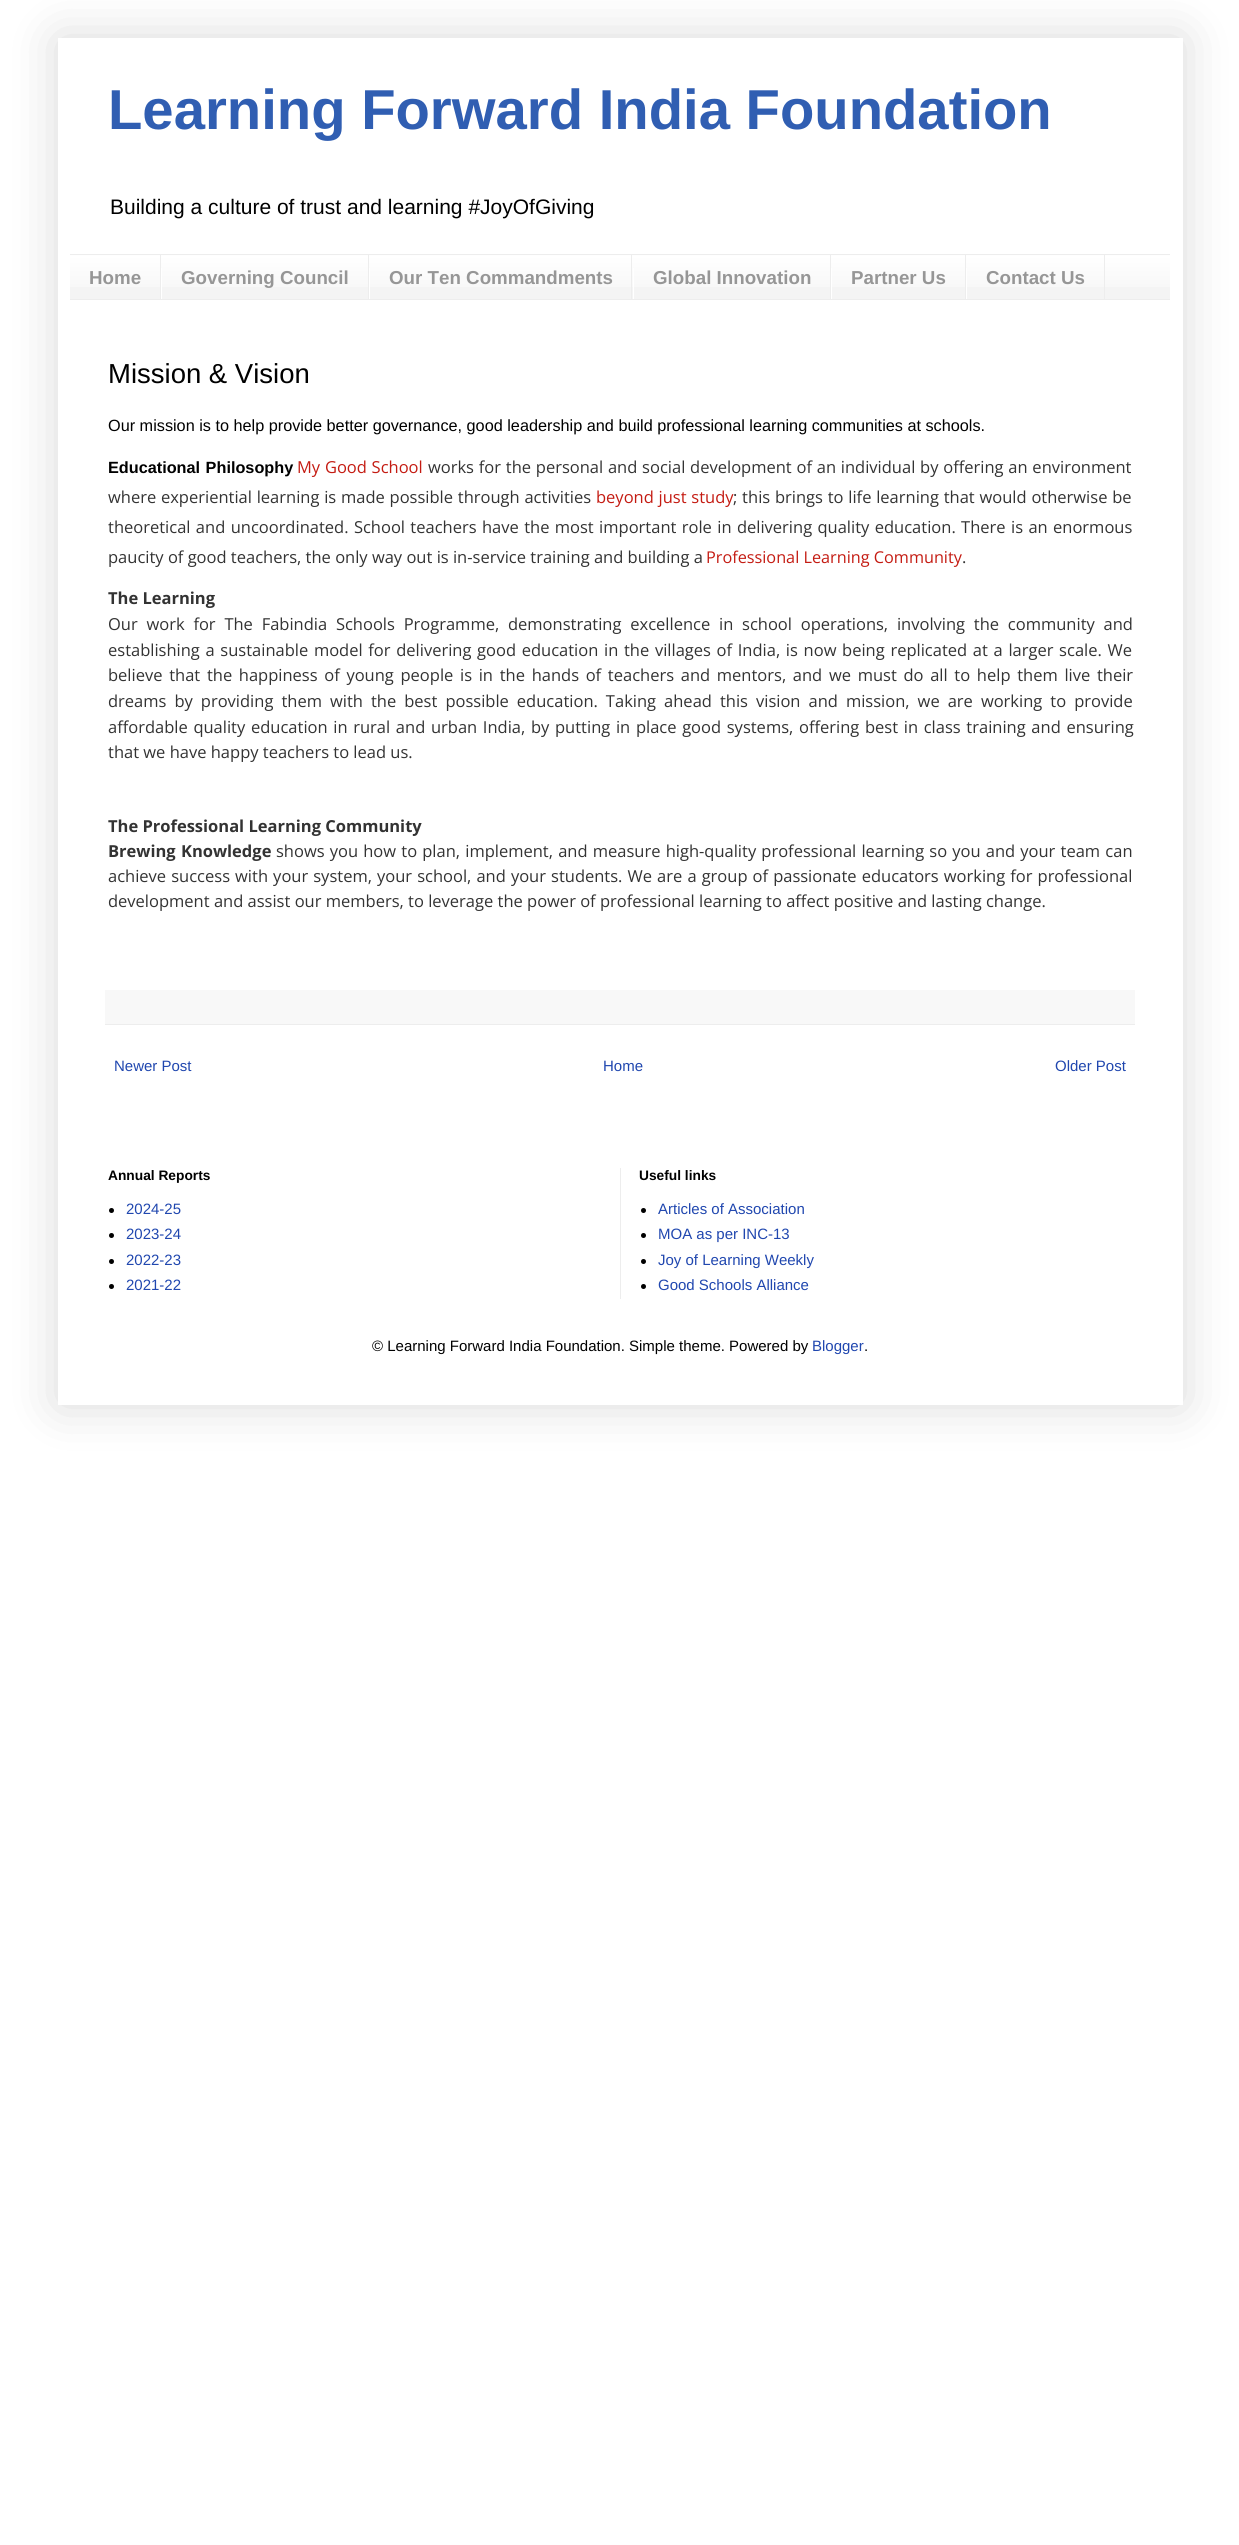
#include <cairo.h>
#include <math.h>
#include <stddef.h>

typedef struct { double x, y; const char *s; } line_t;
typedef struct { double x, y, w, h; unsigned color; } box_t;

static void ink(cairo_t *ctx, unsigned color) {
    cairo_set_source_rgb(ctx, (color >> 16) / 255.0, (color >> 8 & 255) / 255.0, (color & 255) / 255.0);
}

static void write_spaced(cairo_t *ctx, double x, double y, const char *s, double letter, double word) {
    cairo_move_to(ctx, x, y);
    while (*s) {
        char ch[5] = {0};
        int n = 0;
        do ch[n++] = *s++; while ((*s & 0xC0) == 0x80);
        cairo_show_text(ctx, ch);
        cairo_rel_move_to(ctx, letter + word * (*ch == ' '), 0);
    }
}

static void round_path(cairo_t *ctx, double x, double y, double w, double h, double r) {
    cairo_new_sub_path(ctx);
    cairo_arc(ctx, x + w - r, y + h - r, r, 0, M_PI / 2);
    cairo_arc(ctx, x + r, y + h - r, r, M_PI / 2, M_PI);
    cairo_arc(ctx, x + r, y + r, r, M_PI, 1.5 * M_PI);
    cairo_arc(ctx, x + w - r, y + r, r, 1.5 * M_PI, 2 * M_PI);
    cairo_close_path(ctx);
}

static void blur_box(cairo_t *ctx, double x, double y, double w, double h, double r, double blur, double alpha) {
    cairo_push_group_with_content(ctx, CAIRO_CONTENT_ALPHA);
    cairo_set_operator(ctx, CAIRO_OPERATOR_SOURCE);
    for (int i = 15; i >= -15 && fmin(w, h) + blur * i / 3 > 0; i -= 2) {
        double e = blur * i / 6;
        cairo_set_source_rgba(ctx, 0, 0, 0, alpha * erfc((i - 1) / 8.5) / 2);
        round_path(ctx, x - e, y - e, w + 2 * e, h + 2 * e, fmax(0, fmin(r + e + blur * .6, fmin(w, h) / 2 + e)));
        cairo_fill(ctx);
    }
    cairo_pattern_t *soft = cairo_pop_group(ctx);
    cairo_mask(ctx, soft);
    cairo_pattern_destroy(soft);
}

static void paste(cairo_t *ctx, const char *path, double x, double y, double w, double h) {
    cairo_surface_t *image = cairo_image_surface_create_from_png(path);
    cairo_save(ctx);
    cairo_set_source_surface(ctx, image, x, y);
    cairo_rectangle(ctx, x, y, w, h);
    cairo_fill(ctx);
    cairo_restore(ctx);
    cairo_surface_destroy(image);
}

int main(void) {
    cairo_surface_t *surface = cairo_image_surface_create(CAIRO_FORMAT_RGB24, 1239, 2545);
    cairo_t *ctx = cairo_create(surface);
    cairo_font_options_t *options = cairo_font_options_create();
    cairo_font_options_set_hint_metrics(options, CAIRO_HINT_METRICS_OFF);
    cairo_font_options_set_hint_style(options, CAIRO_HINT_STYLE_NONE);
    cairo_set_font_options(ctx, options);
    cairo_set_miter_limit(ctx, 4);
    ink(ctx, 0xFFFFFF);
    cairo_paint(ctx);
    ink(ctx, 0x000000);
    blur_box(ctx, 58, 38, 1125, 1367, 0, 25, 0.15);
    ink(ctx, 0xFFFFFF);
    cairo_rectangle(ctx, 58, 38, 1125, 1367);
    cairo_fill(ctx);
    cairo_select_font_face(ctx, "Liberation Sans", CAIRO_FONT_SLANT_NORMAL, CAIRO_FONT_WEIGHT_BOLD);
    cairo_set_font_size(ctx, 56.25);
    ink(ctx, 0x305EB2);
    cairo_move_to(ctx, 108, 129);
    cairo_show_text(ctx, "Learning Forward India Foundation");
    cairo_select_font_face(ctx, "Liberation Sans", CAIRO_FONT_SLANT_NORMAL, CAIRO_FONT_WEIGHT_NORMAL);
    cairo_set_font_size(ctx, 21);
    ink(ctx, 0x000000);
    cairo_move_to(ctx, 110, 214);
    cairo_show_text(ctx, "Building a culture of trust and learning #JoyOfGiving");
    ink(ctx, 0xF4F4F4);
    cairo_rectangle(ctx, 70, 255, 1100, 44);
    cairo_fill(ctx);
    paste(ctx, "media/1.png", 70, 255, 1100, 32);
    {
        static const box_t items[] = {
            {70, 254, 1100, 1, 0xEDEDED},
            {70, 299, 1100, 1, 0xEDEDED},
            {160, 255, 1, 44, 0xEDEDED},
        };
        for (size_t i = 0; i < sizeof items / sizeof *items; i++) {
            ink(ctx, items[i].color);
            cairo_rectangle(ctx, items[i].x, items[i].y, items[i].w, items[i].h);
            cairo_fill(ctx);
        }
    }
    cairo_select_font_face(ctx, "Liberation Sans", CAIRO_FONT_SLANT_NORMAL, CAIRO_FONT_WEIGHT_BOLD);
    cairo_set_font_size(ctx, 18.75);
    ink(ctx, 0x969696);
    cairo_move_to(ctx, 89, 284);
    cairo_show_text(ctx, "Home");
    ink(ctx, 0xEDEDED);
    cairo_rectangle(ctx, 368, 255, 1, 44);
    cairo_fill(ctx);
    ink(ctx, 0xFFFFFF);
    cairo_rectangle(ctx, 161, 268, 1, 31);
    cairo_fill(ctx);
    ink(ctx, 0x969696);
    cairo_move_to(ctx, 181, 284);
    cairo_show_text(ctx, "Governing Council");
    ink(ctx, 0xEDEDED);
    cairo_rectangle(ctx, 631, 255, 1, 44);
    cairo_fill(ctx);
    ink(ctx, 0xFFFFFF);
    cairo_rectangle(ctx, 369, 268, 1, 31);
    cairo_fill(ctx);
    ink(ctx, 0x969696);
    cairo_move_to(ctx, 389, 284);
    cairo_show_text(ctx, "Our Ten Commandments");
    ink(ctx, 0xEDEDED);
    cairo_rectangle(ctx, 830, 255, 1, 44);
    cairo_fill(ctx);
    ink(ctx, 0xFFFFFF);
    cairo_rectangle(ctx, 633, 268, 1, 31);
    cairo_fill(ctx);
    ink(ctx, 0x969696);
    cairo_move_to(ctx, 653, 284);
    cairo_show_text(ctx, "Global Innovation");
    ink(ctx, 0xEDEDED);
    cairo_rectangle(ctx, 965, 255, 1, 44);
    cairo_fill(ctx);
    ink(ctx, 0xFFFFFF);
    cairo_rectangle(ctx, 831, 268, 1, 31);
    cairo_fill(ctx);
    ink(ctx, 0x969696);
    cairo_move_to(ctx, 851, 284);
    cairo_show_text(ctx, "Partner Us");
    ink(ctx, 0xEDEDED);
    cairo_rectangle(ctx, 1104, 255, 1, 44);
    cairo_fill(ctx);
    ink(ctx, 0xFFFFFF);
    cairo_rectangle(ctx, 966, 268, 1, 31);
    cairo_fill(ctx);
    ink(ctx, 0x969696);
    cairo_move_to(ctx, 986, 284);
    cairo_show_text(ctx, "Contact Us");
    cairo_select_font_face(ctx, "Liberation Sans", CAIRO_FONT_SLANT_NORMAL, CAIRO_FONT_WEIGHT_NORMAL);
    cairo_set_font_size(ctx, 27.5);
    ink(ctx, 0x000000);
    cairo_move_to(ctx, 108, 383);
    cairo_show_text(ctx, "Mission & Vision");
    cairo_set_font_size(ctx, 16.25);
    cairo_move_to(ctx, 108, 431);
    cairo_show_text(ctx, "Our mission is to help provide better governance, good leadership and build professional learning communities at schools.");
    cairo_select_font_face(ctx, "Liberation Sans", CAIRO_FONT_SLANT_NORMAL, CAIRO_FONT_WEIGHT_BOLD);
    write_spaced(ctx, 108, 473, "Educational Philosophy", 0, 1);
    cairo_select_font_face(ctx, "Open Sans", CAIRO_FONT_SLANT_NORMAL, CAIRO_FONT_WEIGHT_NORMAL);
    cairo_set_font_size(ctx, 16.5);
    ink(ctx, 0xC41B12);
    write_spaced(ctx, 297, 473, "My Good School", 0, 0.5);
    ink(ctx, 0x333333);
    write_spaced(ctx, 428, 473, "works for the personal and social development of an individual by offering an environment", 0, 0.5);
    write_spaced(ctx, 108, 503, "where experiential learning is made possible through activities", 0, 0.5);
    ink(ctx, 0xC41B12);
    write_spaced(ctx, 596, 503, "beyond just study", 0, 0.5);
    ink(ctx, 0x333333);
    write_spaced(ctx, 733, 503, "; this brings to life learning that would otherwise be", 0, 0.5);
    write_spaced(ctx, 108, 533, "theoretical and uncoordinated. School teachers have the most important role in delivering quality education. There is an enormous", 0, 1.1);
    cairo_move_to(ctx, 108, 563);
    cairo_show_text(ctx, "paucity of good teachers, the only way out is in-service training and building a");
    cairo_set_font_size(ctx, 16.25);
    ink(ctx, 0xC41B12);
    cairo_move_to(ctx, 706, 563);
    cairo_show_text(ctx, "Professional Learning Community");
    cairo_set_font_size(ctx, 16.5);
    ink(ctx, 0x333333);
    cairo_move_to(ctx, 962, 563);
    cairo_show_text(ctx, ".");
    cairo_select_font_face(ctx, "Open Sans", CAIRO_FONT_SLANT_NORMAL, CAIRO_FONT_WEIGHT_BOLD);
    cairo_move_to(ctx, 108, 604);
    cairo_show_text(ctx, "The Learning");
    cairo_select_font_face(ctx, "Open Sans", CAIRO_FONT_SLANT_NORMAL, CAIRO_FONT_WEIGHT_NORMAL);
    write_spaced(ctx, 108, 630, "Our work for The Fabindia Schools Programme, demonstrating excellence in school operations, involving the community and", 0, 4.5);
    write_spaced(ctx, 108, 656, "establishing a sustainable model for delivering good education in the villages of India, is now being replicated at a larger scale. We", 0, 1.4);
    write_spaced(ctx, 108, 681, "believe that the happiness of young people is in the hands of teachers and mentors, and we must do all to help them live their", 0, 2.4);
    write_spaced(ctx, 108, 707, "dreams by providing them with the best possible education. Taking ahead this vision and mission, we are working to provide", 0, 3.75);
    write_spaced(ctx, 108, 733, "affordable quality education in rural and urban India, by putting in place good systems, offering best in class training and ensuring", 0, 1.4);
    cairo_move_to(ctx, 108, 758);
    cairo_show_text(ctx, "that we have happy teachers to lead us.");
    cairo_select_font_face(ctx, "Open Sans", CAIRO_FONT_SLANT_NORMAL, CAIRO_FONT_WEIGHT_BOLD);
    cairo_move_to(ctx, 108, 832);
    cairo_show_text(ctx, "The Professional Learning Community");
    write_spaced(ctx, 108, 857, "Brewing Knowledge", 0, 1);
    cairo_select_font_face(ctx, "Open Sans", CAIRO_FONT_SLANT_NORMAL, CAIRO_FONT_WEIGHT_NORMAL);
    write_spaced(ctx, 276, 857, "shows you how to plan, implement, and measure high-quality professional learning so you and your team can", 0, 0.9);
    write_spaced(ctx, 108, 882, "achieve success with your system, your school, and your students. We are a group of passionate educators working for professional", 0, 0.8);
    cairo_move_to(ctx, 108, 907);
    cairo_show_text(ctx, "development and assist our members, to leverage the power of professional learning to affect positive and lasting change.");
    ink(ctx, 0xF8F8F8);
    cairo_rectangle(ctx, 105, 990, 1030, 34);
    cairo_fill(ctx);
    ink(ctx, 0xEDEDED);
    cairo_rectangle(ctx, 105, 1024, 1030, 1);
    cairo_fill(ctx);
    cairo_select_font_face(ctx, "Liberation Sans", CAIRO_FONT_SLANT_NORMAL, CAIRO_FONT_WEIGHT_NORMAL);
    cairo_set_font_size(ctx, 15);
    ink(ctx, 0x2047AF);
    {
        static const line_t items[] = {
            {114, 1071, "Newer Post"},
            {603, 1071, "Home"},
            {1055, 1071, "Older Post"},
        };
        for (size_t i = 0; i < sizeof items / sizeof *items; i++) {
            cairo_move_to(ctx, items[i].x, items[i].y);
            cairo_show_text(ctx, items[i].s);
        }
    }
    cairo_select_font_face(ctx, "Liberation Sans", CAIRO_FONT_SLANT_NORMAL, CAIRO_FONT_WEIGHT_BOLD);
    cairo_set_font_size(ctx, 13.75);
    ink(ctx, 0x000000);
    cairo_move_to(ctx, 108, 1180);
    cairo_show_text(ctx, "Annual Reports");
    cairo_new_path(ctx);
    cairo_arc(ctx, 111.5, 1210.5, 2.5, 0, 2 * M_PI);
    cairo_fill(ctx);
    cairo_select_font_face(ctx, "Liberation Sans", CAIRO_FONT_SLANT_NORMAL, CAIRO_FONT_WEIGHT_NORMAL);
    cairo_set_font_size(ctx, 15);
    ink(ctx, 0x2047AF);
    cairo_move_to(ctx, 126, 1214);
    cairo_show_text(ctx, "2024-25");
    ink(ctx, 0x000000);
    cairo_new_path(ctx);
    cairo_arc(ctx, 111.5, 1235.5, 2.5, 0, 2 * M_PI);
    cairo_fill(ctx);
    ink(ctx, 0x2047AF);
    cairo_move_to(ctx, 126, 1239);
    cairo_show_text(ctx, "2023-24");
    ink(ctx, 0x000000);
    cairo_new_path(ctx);
    cairo_arc(ctx, 111.5, 1261.5, 2.5, 0, 2 * M_PI);
    cairo_fill(ctx);
    ink(ctx, 0x2047AF);
    cairo_move_to(ctx, 126, 1265);
    cairo_show_text(ctx, "2022-23");
    ink(ctx, 0x000000);
    cairo_new_path(ctx);
    cairo_arc(ctx, 111.5, 1286.5, 2.5, 0, 2 * M_PI);
    cairo_fill(ctx);
    ink(ctx, 0x2047AF);
    cairo_move_to(ctx, 126, 1290);
    cairo_show_text(ctx, "2021-22");
    ink(ctx, 0xEDEDED);
    cairo_rectangle(ctx, 620, 1168, 1, 131);
    cairo_fill(ctx);
    cairo_select_font_face(ctx, "Liberation Sans", CAIRO_FONT_SLANT_NORMAL, CAIRO_FONT_WEIGHT_BOLD);
    cairo_set_font_size(ctx, 13.75);
    ink(ctx, 0x000000);
    cairo_move_to(ctx, 639, 1180);
    cairo_show_text(ctx, "Useful links");
    cairo_new_path(ctx);
    cairo_arc(ctx, 643.5, 1210.5, 2.5, 0, 2 * M_PI);
    cairo_fill(ctx);
    cairo_select_font_face(ctx, "Liberation Sans", CAIRO_FONT_SLANT_NORMAL, CAIRO_FONT_WEIGHT_NORMAL);
    cairo_set_font_size(ctx, 15);
    ink(ctx, 0x2047AF);
    cairo_move_to(ctx, 658, 1214);
    cairo_show_text(ctx, "Articles of Association");
    ink(ctx, 0x000000);
    cairo_new_path(ctx);
    cairo_arc(ctx, 643.5, 1235.5, 2.5, 0, 2 * M_PI);
    cairo_fill(ctx);
    ink(ctx, 0x2047AF);
    cairo_move_to(ctx, 658, 1239);
    cairo_show_text(ctx, "MOA as per INC-13");
    ink(ctx, 0x000000);
    cairo_new_path(ctx);
    cairo_arc(ctx, 643.5, 1261.5, 2.5, 0, 2 * M_PI);
    cairo_fill(ctx);
    ink(ctx, 0x2047AF);
    cairo_move_to(ctx, 658, 1265);
    cairo_show_text(ctx, "Joy of Learning Weekly");
    ink(ctx, 0x000000);
    cairo_new_path(ctx);
    cairo_arc(ctx, 643.5, 1286.5, 2.5, 0, 2 * M_PI);
    cairo_fill(ctx);
    ink(ctx, 0x2047AF);
    cairo_move_to(ctx, 658, 1290);
    cairo_show_text(ctx, "Good Schools Alliance");
    ink(ctx, 0x000000);
    cairo_move_to(ctx, 372, 1351);
    cairo_show_text(ctx, "© Learning Forward India Foundation. Simple theme. Powered by");
    ink(ctx, 0x2047AF);
    cairo_move_to(ctx, 812, 1351);
    cairo_show_text(ctx, "Blogger");
    ink(ctx, 0x000000);
    cairo_move_to(ctx, 864, 1351);
    cairo_show_text(ctx, ".");
    cairo_surface_write_to_png(surface, "image.png");
    cairo_font_options_destroy(options);
    cairo_destroy(ctx);
    cairo_surface_destroy(surface);
    return 0;
}
